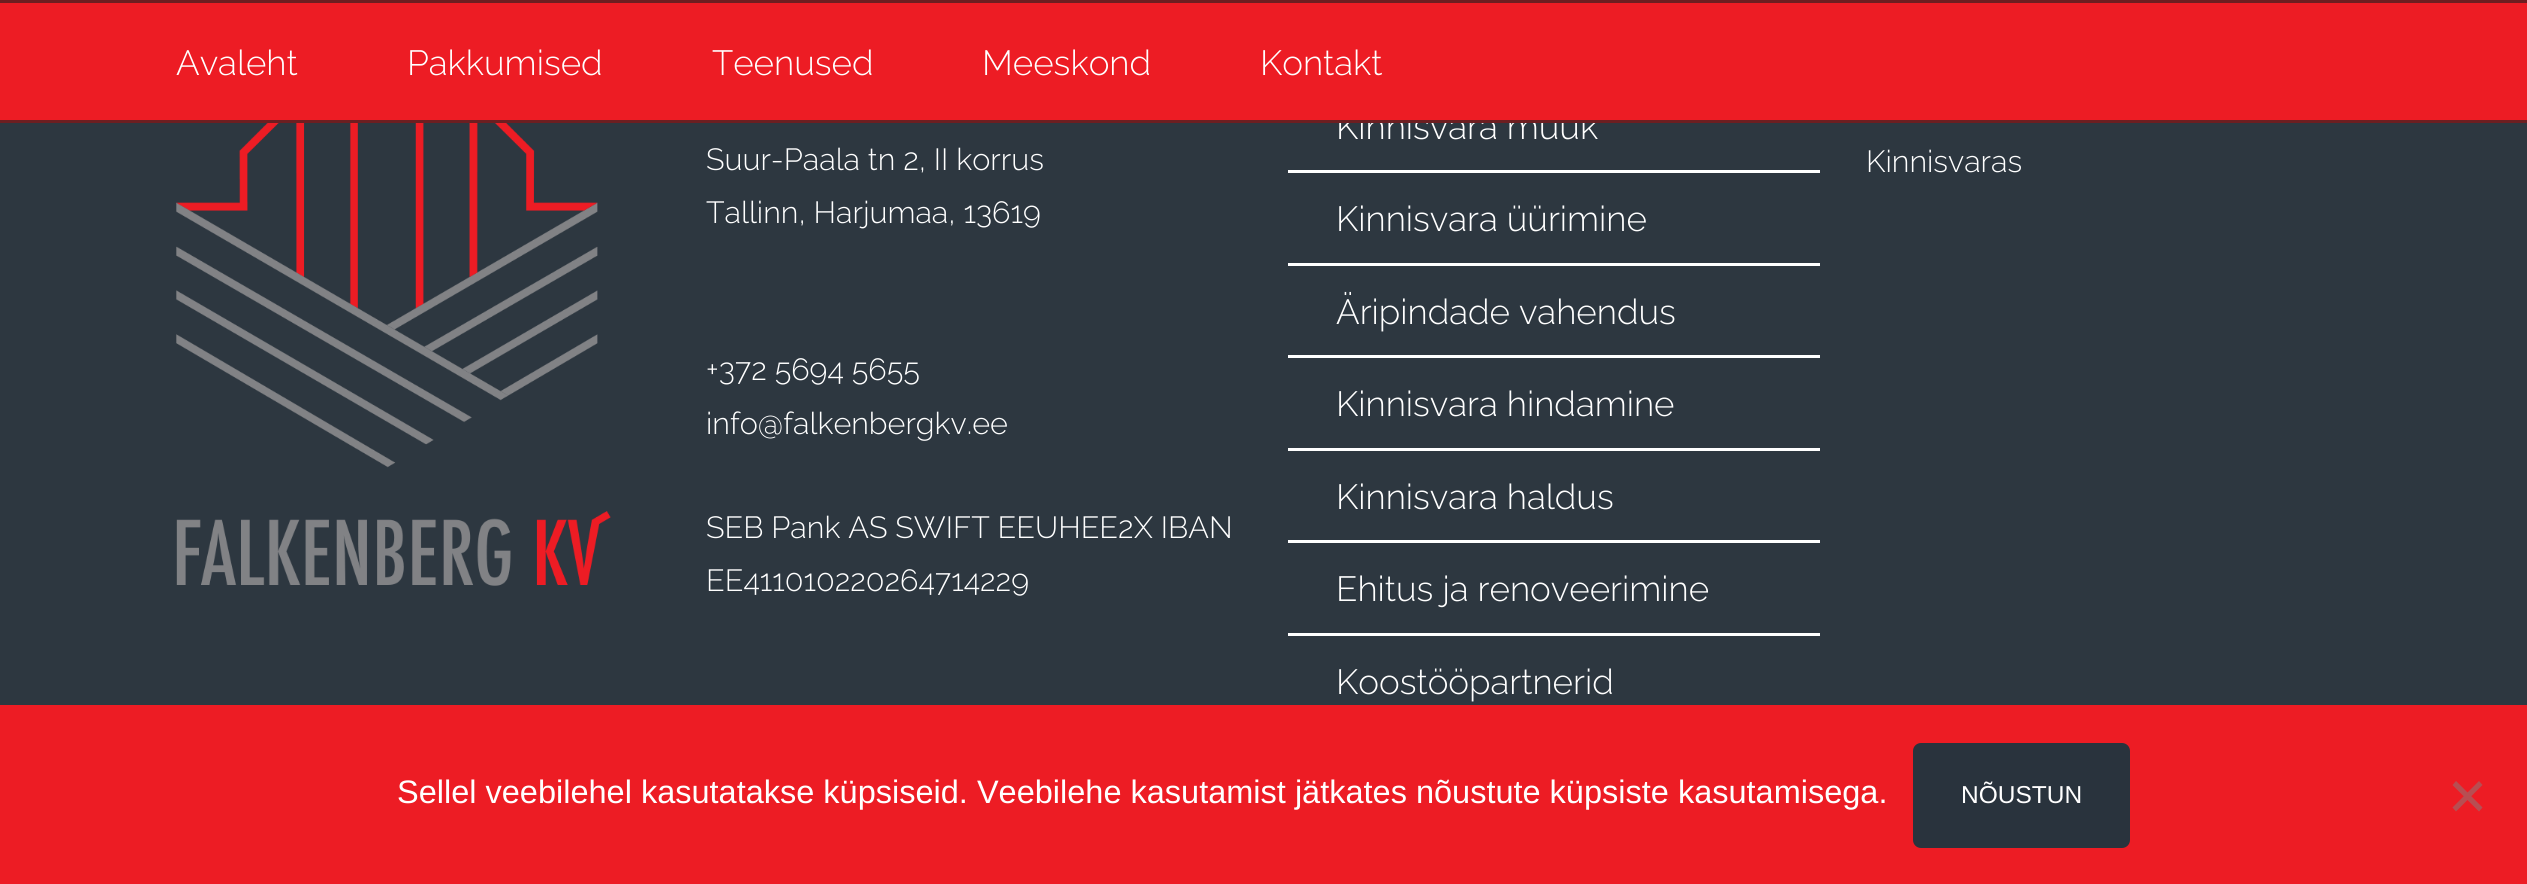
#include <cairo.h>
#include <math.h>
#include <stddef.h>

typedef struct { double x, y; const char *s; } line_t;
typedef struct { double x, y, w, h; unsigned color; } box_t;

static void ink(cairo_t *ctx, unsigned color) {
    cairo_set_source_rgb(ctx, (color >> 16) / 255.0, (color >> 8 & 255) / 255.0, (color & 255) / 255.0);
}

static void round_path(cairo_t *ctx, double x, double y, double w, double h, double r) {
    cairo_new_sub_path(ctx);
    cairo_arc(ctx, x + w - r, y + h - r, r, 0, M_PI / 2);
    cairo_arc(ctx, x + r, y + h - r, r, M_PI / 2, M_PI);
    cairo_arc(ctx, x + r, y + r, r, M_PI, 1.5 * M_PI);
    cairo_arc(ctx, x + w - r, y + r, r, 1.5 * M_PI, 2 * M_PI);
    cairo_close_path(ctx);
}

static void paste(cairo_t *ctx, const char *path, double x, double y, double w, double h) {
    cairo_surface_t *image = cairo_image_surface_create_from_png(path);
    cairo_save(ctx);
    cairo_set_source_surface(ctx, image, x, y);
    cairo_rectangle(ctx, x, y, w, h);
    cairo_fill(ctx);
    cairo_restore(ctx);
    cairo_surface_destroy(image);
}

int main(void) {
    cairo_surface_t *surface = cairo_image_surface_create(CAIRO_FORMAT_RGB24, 2527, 884);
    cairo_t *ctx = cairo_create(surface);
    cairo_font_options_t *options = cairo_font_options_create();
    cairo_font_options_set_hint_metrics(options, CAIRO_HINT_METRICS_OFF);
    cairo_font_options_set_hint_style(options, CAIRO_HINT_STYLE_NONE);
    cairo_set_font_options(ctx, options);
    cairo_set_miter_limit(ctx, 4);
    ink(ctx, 0x2D3740);
    cairo_paint(ctx);
    cairo_select_font_face(ctx, "Raleway Light", CAIRO_FONT_SLANT_NORMAL, CAIRO_FONT_WEIGHT_NORMAL);
    cairo_set_font_size(ctx, 35);
    ink(ctx, 0xFFFFFF);
    cairo_move_to(ctx, 1336, 139);
    cairo_show_text(ctx, "Kinnisvara müük");
    {
        static const box_t items[] = {
            {0, 3, 2527, 117, 0xED1C24},
            {0, 0, 2527, 3, 0x6D1E21},
            {0, 120, 2527, 3, 0x6D1E21},
        };
        for (size_t i = 0; i < sizeof items / sizeof *items; i++) {
            ink(ctx, items[i].color);
            cairo_rectangle(ctx, items[i].x, items[i].y, items[i].w, items[i].h);
            cairo_fill(ctx);
        }
    }
    ink(ctx, 0xFFFFFF);
    {
        static const line_t items[] = {
            {176, 75, "Avaleht"},
            {407, 75, "Pakkumised"},
            {712, 75, "Teenused"},
            {982, 75, "Meeskond"},
            {1260, 75, "Kontakt"},
        };
        for (size_t i = 0; i < sizeof items / sizeof *items; i++) {
            cairo_move_to(ctx, items[i].x, items[i].y);
            cairo_show_text(ctx, items[i].s);
        }
    }
    paste(ctx, "media/1.png", 176, 123, 435, 463);
    cairo_set_font_size(ctx, 30.6);
    {
        static const line_t items[] = {
            {706, 170, "Suur-Paala tn 2, II korrus"},
            {706, 223, "Tallinn, Harjumaa, 13619"},
            {706, 380, "+372 5694 5655"},
            {706, 434, "info@falkenbergkv.ee"},
            {706, 538, "SEB Pank AS SWIFT EEUHEE2X IBAN"},
            {706, 591, "EE411010220264714229"},
        };
        for (size_t i = 0; i < sizeof items / sizeof *items; i++) {
            cairo_move_to(ctx, items[i].x, items[i].y);
            cairo_show_text(ctx, items[i].s);
        }
    }
    cairo_rectangle(ctx, 1288, 170, 532, 3);
    cairo_fill(ctx);
    cairo_rectangle(ctx, 1288, 263, 532, 3);
    cairo_fill(ctx);
    cairo_set_font_size(ctx, 35);
    cairo_move_to(ctx, 1336, 231);
    cairo_show_text(ctx, "Kinnisvara üürimine");
    cairo_rectangle(ctx, 1288, 355, 532, 3);
    cairo_fill(ctx);
    cairo_move_to(ctx, 1336, 324);
    cairo_show_text(ctx, "Äripindade vahendus");
    cairo_rectangle(ctx, 1288, 448, 532, 3);
    cairo_fill(ctx);
    cairo_move_to(ctx, 1336, 416);
    cairo_show_text(ctx, "Kinnisvara hindamine");
    cairo_rectangle(ctx, 1288, 540, 532, 3);
    cairo_fill(ctx);
    cairo_move_to(ctx, 1336, 509);
    cairo_show_text(ctx, "Kinnisvara haldus");
    cairo_rectangle(ctx, 1288, 633, 532, 3);
    cairo_fill(ctx);
    cairo_move_to(ctx, 1336, 601);
    cairo_show_text(ctx, "Ehitus ja renoveerimine");
    cairo_move_to(ctx, 1336, 694);
    cairo_show_text(ctx, "Koostööpartnerid");
    cairo_set_font_size(ctx, 30.6);
    cairo_move_to(ctx, 1866, 172);
    cairo_show_text(ctx, "Kinnisvaras");
    ink(ctx, 0xED1C24);
    cairo_rectangle(ctx, 0, 705, 2527, 179);
    cairo_fill(ctx);
    cairo_select_font_face(ctx, "Liberation Sans", CAIRO_FONT_SLANT_NORMAL, CAIRO_FONT_WEIGHT_NORMAL);
    cairo_set_font_size(ctx, 32.5);
    ink(ctx, 0xFFFFFF);
    cairo_move_to(ctx, 397, 803);
    cairo_show_text(ctx, "Sellel veebilehel kasutatakse küpsiseid. Veebilehe kasutamist jätkates nõustute küpsiste kasutamisega.");
    ink(ctx, 0x29333D);
    round_path(ctx, 1913, 743, 217, 105, 8);
    cairo_fill(ctx);
    cairo_set_font_size(ctx, 24.5);
    ink(ctx, 0xFFFFFF);
    cairo_move_to(ctx, 1961, 803);
    cairo_show_text(ctx, "NÕUSTUN");
    ink(ctx, 0xB74E52);
    cairo_new_path(ctx);
    cairo_move_to(ctx, 2479, 781);
    cairo_line_to(ctx, 2482.5, 785);
    cairo_line_to(ctx, 2456, 811.5);
    cairo_line_to(ctx, 2452.5, 807.5);
    cairo_close_path(ctx);
    cairo_fill(ctx);
    cairo_new_path(ctx);
    cairo_move_to(ctx, 2452.5, 785);
    cairo_line_to(ctx, 2456, 781);
    cairo_line_to(ctx, 2482.5, 807.5);
    cairo_line_to(ctx, 2479, 811.5);
    cairo_close_path(ctx);
    cairo_fill(ctx);
    cairo_surface_write_to_png(surface, "image.png");
    cairo_font_options_destroy(options);
    cairo_destroy(ctx);
    cairo_surface_destroy(surface);
    return 0;
}
